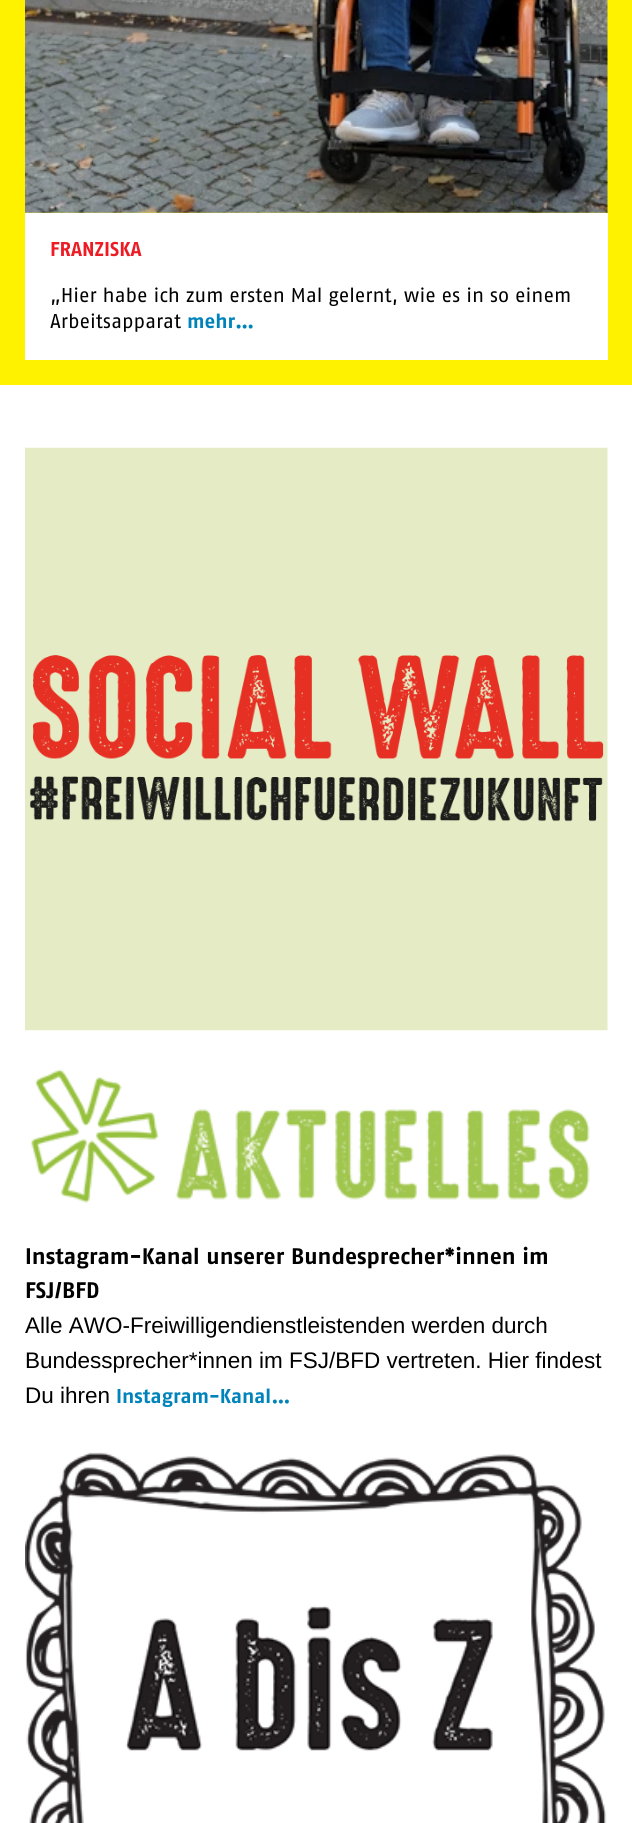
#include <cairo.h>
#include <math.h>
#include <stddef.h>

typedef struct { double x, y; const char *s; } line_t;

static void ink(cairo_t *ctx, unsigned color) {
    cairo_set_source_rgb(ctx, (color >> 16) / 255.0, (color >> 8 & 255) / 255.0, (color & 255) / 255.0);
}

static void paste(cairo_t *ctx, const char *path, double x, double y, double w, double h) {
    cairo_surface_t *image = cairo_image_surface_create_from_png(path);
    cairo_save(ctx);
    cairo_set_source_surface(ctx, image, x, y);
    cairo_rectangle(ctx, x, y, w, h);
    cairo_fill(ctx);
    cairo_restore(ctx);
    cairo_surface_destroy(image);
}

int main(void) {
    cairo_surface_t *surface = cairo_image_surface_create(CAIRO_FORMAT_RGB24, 632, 1823);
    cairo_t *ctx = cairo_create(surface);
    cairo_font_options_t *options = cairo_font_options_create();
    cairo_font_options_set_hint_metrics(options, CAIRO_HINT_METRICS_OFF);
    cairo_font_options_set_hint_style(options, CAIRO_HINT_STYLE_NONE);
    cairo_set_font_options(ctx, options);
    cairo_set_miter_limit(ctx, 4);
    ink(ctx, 0xFFFFFF);
    cairo_paint(ctx);
    ink(ctx, 0xFFF200);
    cairo_rectangle(ctx, 0, 0, 632, 385);
    cairo_fill(ctx);
    paste(ctx, "media/1.png", 25, 0, 583, 213);
    ink(ctx, 0xFFFFFF);
    cairo_rectangle(ctx, 25, 213, 583, 147);
    cairo_fill(ctx);
    cairo_select_font_face(ctx, "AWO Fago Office", CAIRO_FONT_SLANT_NORMAL, CAIRO_FONT_WEIGHT_BOLD);
    cairo_set_font_size(ctx, 20);
    ink(ctx, 0xED1C24);
    cairo_move_to(ctx, 50, 256);
    cairo_show_text(ctx, "FRANZISKA");
    cairo_select_font_face(ctx, "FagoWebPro", CAIRO_FONT_SLANT_NORMAL, CAIRO_FONT_WEIGHT_NORMAL);
    ink(ctx, 0x000000);
    cairo_move_to(ctx, 50, 302);
    cairo_show_text(ctx, "„Hier habe ich zum ersten Mal gelernt, wie es in so einem");
    cairo_move_to(ctx, 50, 328);
    cairo_show_text(ctx, "Arbeitsapparat");
    cairo_select_font_face(ctx, "AWO Fago Office", CAIRO_FONT_SLANT_NORMAL, CAIRO_FONT_WEIGHT_BOLD);
    ink(ctx, 0x0083BB);
    cairo_move_to(ctx, 187, 328);
    cairo_show_text(ctx, "mehr…");
    paste(ctx, "media/2.png", 25, 447, 583, 584);
    paste(ctx, "media/3.png", 31, 1069, 559, 134);
    cairo_set_font_size(ctx, 22.5);
    ink(ctx, 0x000000);
    cairo_move_to(ctx, 25, 1264);
    cairo_show_text(ctx, "Instagram-Kanal unserer Bundesprecher*innen im");
    cairo_move_to(ctx, 25, 1298);
    cairo_show_text(ctx, "FSJ/BFD");
    cairo_select_font_face(ctx, "Liberation Sans", CAIRO_FONT_SLANT_NORMAL, CAIRO_FONT_WEIGHT_NORMAL);
    {
        static const line_t items[] = {
            {25, 1333, "Alle AWO-Freiwilligendienstleistenden werden durch"},
            {25, 1368, "Bundessprecher*innen im FSJ/BFD vertreten. Hier findest"},
            {25, 1403, "Du ihren"},
        };
        for (size_t i = 0; i < sizeof items / sizeof *items; i++) {
            cairo_move_to(ctx, items[i].x, items[i].y);
            cairo_show_text(ctx, items[i].s);
        }
    }
    cairo_select_font_face(ctx, "AWO Fago Office", CAIRO_FONT_SLANT_NORMAL, CAIRO_FONT_WEIGHT_BOLD);
    cairo_set_font_size(ctx, 20);
    ink(ctx, 0x0083BB);
    cairo_move_to(ctx, 116, 1403);
    cairo_show_text(ctx, "Instagram-Kanal…");
    paste(ctx, "media/4.png", 25, 1452, 582, 371);
    cairo_surface_write_to_png(surface, "image.png");
    cairo_font_options_destroy(options);
    cairo_destroy(ctx);
    cairo_surface_destroy(surface);
    return 0;
}
